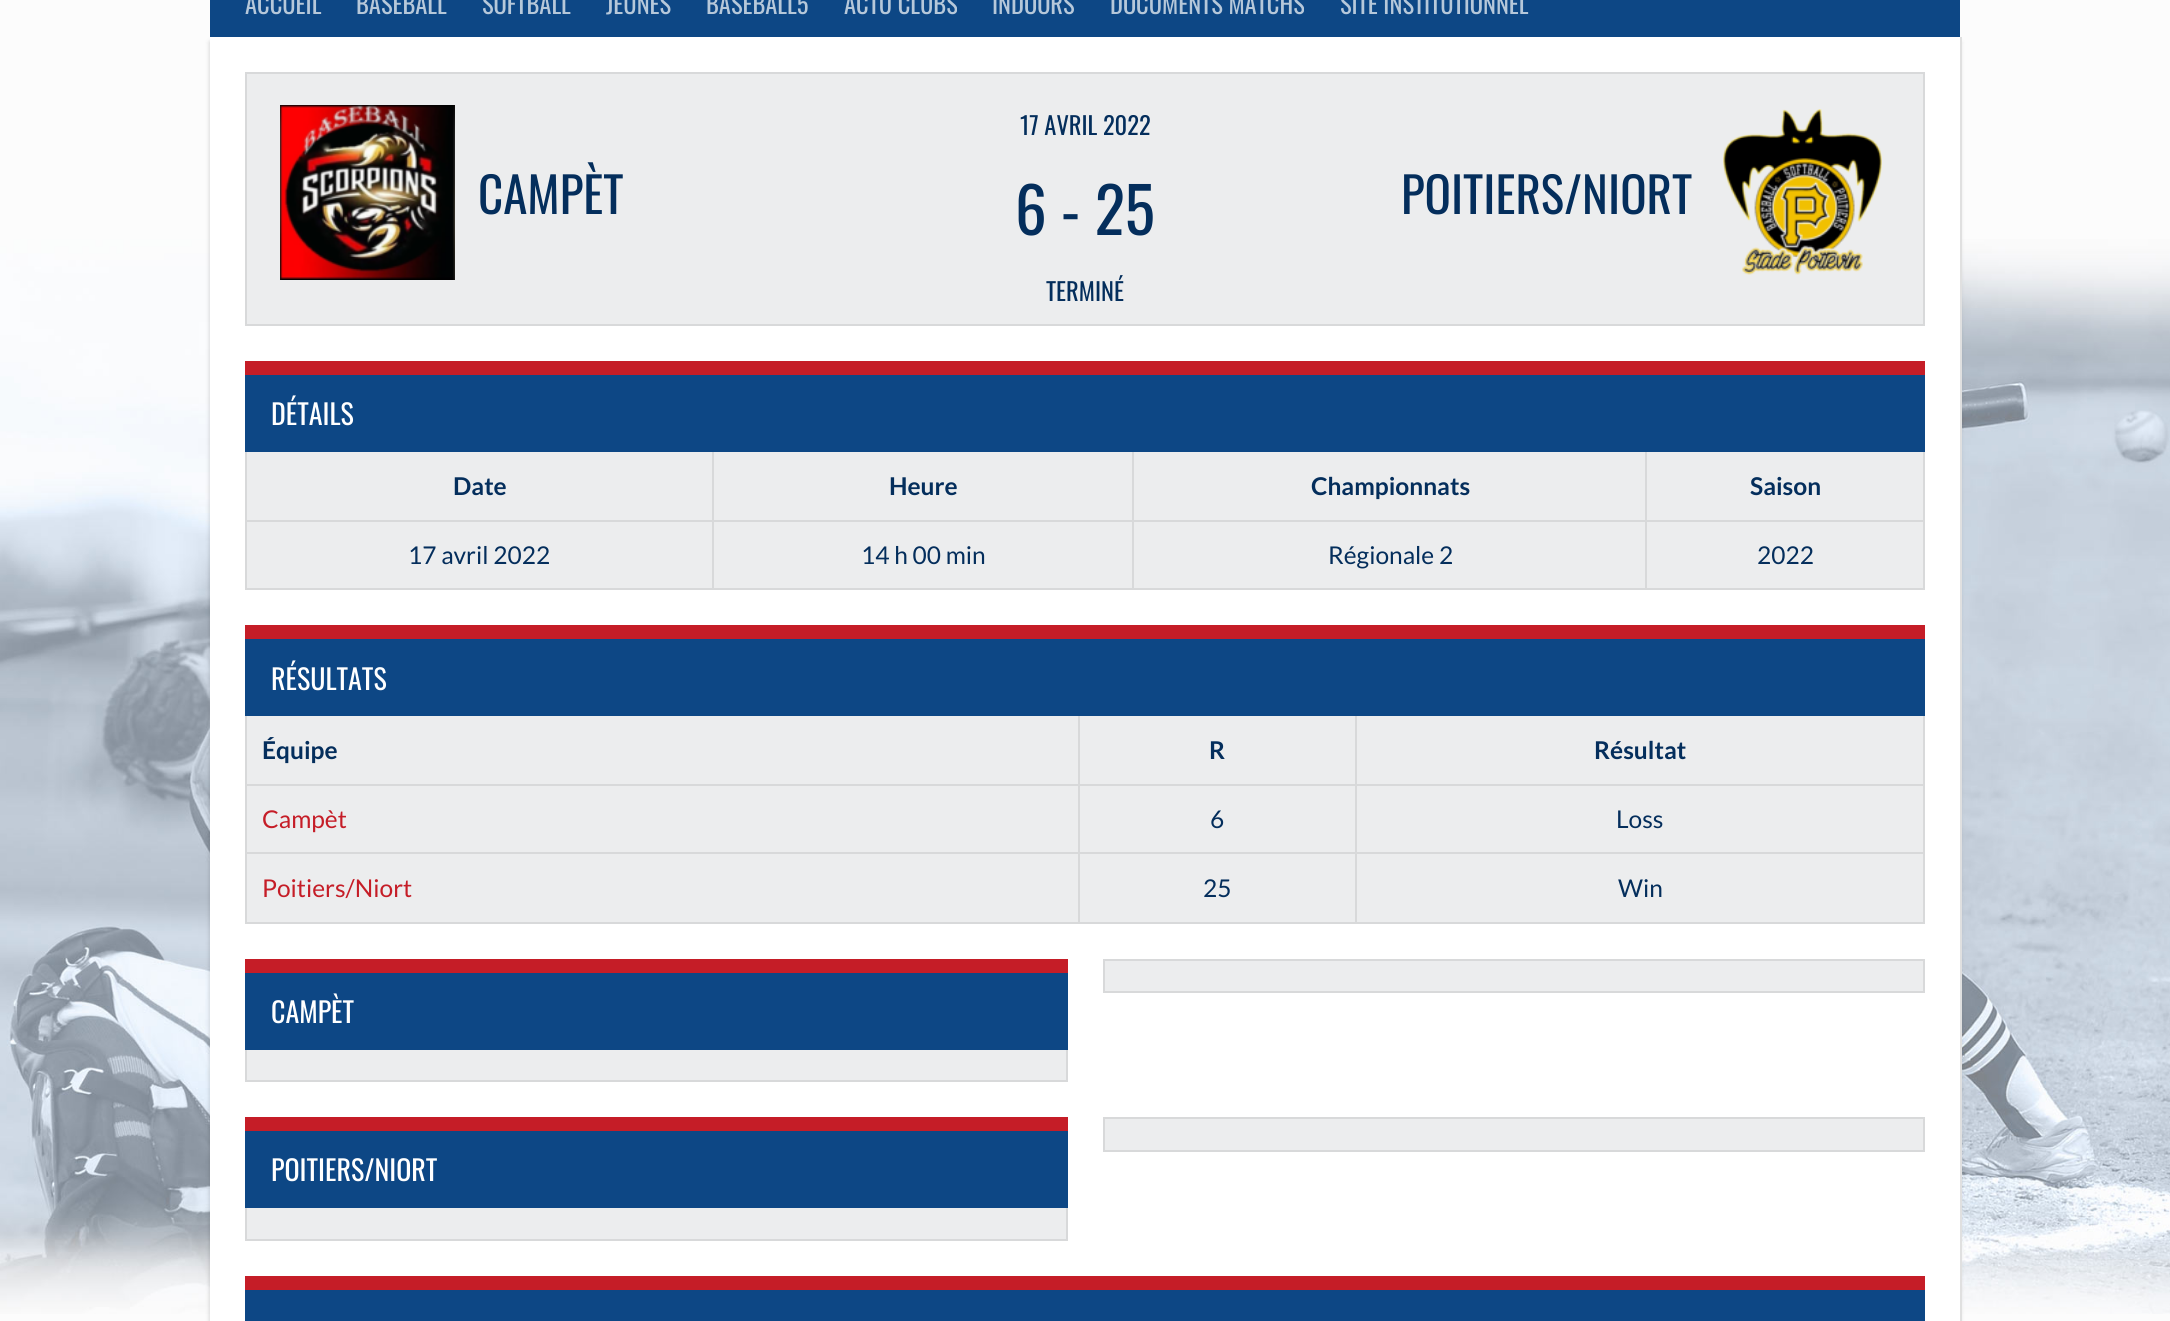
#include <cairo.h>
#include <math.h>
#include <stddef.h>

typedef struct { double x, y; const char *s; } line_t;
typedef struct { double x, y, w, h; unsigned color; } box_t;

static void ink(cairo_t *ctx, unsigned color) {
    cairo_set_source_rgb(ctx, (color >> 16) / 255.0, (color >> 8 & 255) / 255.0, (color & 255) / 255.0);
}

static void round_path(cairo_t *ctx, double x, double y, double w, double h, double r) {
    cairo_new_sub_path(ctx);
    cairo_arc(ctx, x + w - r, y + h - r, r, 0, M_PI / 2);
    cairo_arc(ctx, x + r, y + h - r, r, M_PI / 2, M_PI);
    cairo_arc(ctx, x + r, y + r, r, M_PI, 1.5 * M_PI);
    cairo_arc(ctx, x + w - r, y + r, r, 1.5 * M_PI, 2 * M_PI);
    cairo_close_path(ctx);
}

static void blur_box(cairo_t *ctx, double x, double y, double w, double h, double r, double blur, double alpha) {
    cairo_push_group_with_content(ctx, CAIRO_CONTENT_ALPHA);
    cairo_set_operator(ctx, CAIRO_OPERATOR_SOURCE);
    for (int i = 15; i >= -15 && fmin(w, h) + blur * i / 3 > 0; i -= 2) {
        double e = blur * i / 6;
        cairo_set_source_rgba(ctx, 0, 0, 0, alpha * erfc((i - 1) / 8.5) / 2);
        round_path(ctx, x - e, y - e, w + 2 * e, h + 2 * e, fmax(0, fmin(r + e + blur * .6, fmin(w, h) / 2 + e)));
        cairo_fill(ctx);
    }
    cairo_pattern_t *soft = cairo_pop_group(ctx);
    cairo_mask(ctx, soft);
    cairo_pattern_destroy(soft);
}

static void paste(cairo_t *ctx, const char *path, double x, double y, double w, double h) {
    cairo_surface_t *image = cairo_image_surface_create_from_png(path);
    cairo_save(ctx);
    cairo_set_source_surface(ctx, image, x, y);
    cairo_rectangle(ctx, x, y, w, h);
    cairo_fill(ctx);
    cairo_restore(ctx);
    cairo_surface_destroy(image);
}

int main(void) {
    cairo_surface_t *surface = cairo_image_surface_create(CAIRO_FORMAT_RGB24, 2170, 1321);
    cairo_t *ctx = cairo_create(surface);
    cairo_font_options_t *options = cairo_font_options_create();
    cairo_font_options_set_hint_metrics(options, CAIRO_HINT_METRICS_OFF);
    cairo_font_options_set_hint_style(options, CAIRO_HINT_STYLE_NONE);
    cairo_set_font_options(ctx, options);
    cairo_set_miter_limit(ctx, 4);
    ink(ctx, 0xFCFCFC);
    cairo_paint(ctx);
    paste(ctx, "media/1.png", 0, 239, 2170, 1075);
    ink(ctx, 0x000000);
    blur_box(ctx, 210, 42, 1750, 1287, 0, 2.5, 0.2);
    ink(ctx, 0x0D4785);
    cairo_rectangle(ctx, 210, 0, 1750, 37);
    cairo_fill(ctx);
    cairo_select_font_face(ctx, "Oswald", CAIRO_FONT_SLANT_NORMAL, CAIRO_FONT_WEIGHT_NORMAL);
    cairo_set_font_size(ctx, 24.5);
    ink(ctx, 0xB6C8DA);
    {
        static const line_t items[] = {
            {245, 14, "ACCUEIL"},
            {356, 14, "BASEBALL"},
            {482, 14, "SOFTBALL"},
            {606, 14, "JEUNES"},
            {706, 14, "BASEBALL5"},
            {844, 14, "ACTU CLUBS"},
            {992, 14, "INDOORS"},
            {1110, 14, "DOCUMENTS MATCHS"},
            {1340, 14, "SITE INSTITUTIONNEL"},
        };
        for (size_t i = 0; i < sizeof items / sizeof *items; i++) {
            cairo_move_to(ctx, items[i].x, items[i].y);
            cairo_show_text(ctx, items[i].s);
        }
    }
    ink(ctx, 0xFFFFFF);
    cairo_rectangle(ctx, 210, 37, 1750, 1284);
    cairo_fill(ctx);
    ink(ctx, 0xE0E0E0);
    cairo_new_path(ctx);
    cairo_move_to(ctx, 212, 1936);
    cairo_line_to(ctx, 1962, 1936);
    cairo_line_to(ctx, 1962, 37);
    cairo_line_to(ctx, 1960, 37);
    cairo_line_to(ctx, 1960, 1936);
    cairo_close_path(ctx);
    cairo_fill(ctx);
    {
        static const box_t items[] = {
            {247, 74, 1676, 250, 0xECEDEE},
            {245, 72, 1680, 2, 0xD8D9DA},
            {1923, 72, 2, 254, 0xD8D9DA},
            {245, 324, 1680, 2, 0xD8D9DA},
            {245, 72, 2, 254, 0xD8D9DA},
        };
        for (size_t i = 0; i < sizeof items / sizeof *items; i++) {
            ink(ctx, items[i].color);
            cairo_rectangle(ctx, items[i].x, items[i].y, items[i].w, items[i].h);
            cairo_fill(ctx);
        }
    }
    ink(ctx, 0x042E5C);
    cairo_move_to(ctx, 1020, 135);
    cairo_show_text(ctx, "17 AVRIL 2022");
    paste(ctx, "media/2.png", 280, 105, 175, 175);
    cairo_set_font_size(ctx, 49);
    cairo_move_to(ctx, 478, 214);
    cairo_show_text(ctx, "CAMPÈT");
    cairo_set_font_size(ctx, 63);
    cairo_move_to(ctx, 1015, 235);
    cairo_show_text(ctx, "6 - 25");
    cairo_set_font_size(ctx, 49);
    cairo_move_to(ctx, 1401, 214);
    cairo_show_text(ctx, "POITIERS/NIORT");
    paste(ctx, "media/3.png", 1723, 109, 159, 166);
    cairo_set_font_size(ctx, 24.5);
    cairo_move_to(ctx, 1046, 301);
    cairo_show_text(ctx, "TERMINÉ");
    {
        static const box_t items[] = {
            {1923, 450, 2, 140, 0xD8D9DA},
            {245, 588, 1680, 2, 0xD8D9DA},
            {245, 450, 2, 140, 0xD8D9DA},
            {247, 452, 1676, 136, 0xECEDEE},
            {1645, 520, 280, 2, 0xD8D9DA},
            {1645, 520, 2, 70, 0xD8D9DA},
            {1132, 520, 515, 2, 0xD8D9DA},
            {1132, 520, 2, 70, 0xD8D9DA},
            {712, 520, 422, 2, 0xD8D9DA},
            {712, 520, 2, 70, 0xD8D9DA},
            {245, 520, 469, 2, 0xD8D9DA},
            {712, 450, 2, 72, 0xD8D9DA},
            {1132, 450, 2, 72, 0xD8D9DA},
            {1645, 450, 2, 72, 0xD8D9DA},
            {245, 375, 1680, 77, 0x0D4785},
            {245, 361, 1680, 14, 0xC51D27},
        };
        for (size_t i = 0; i < sizeof items / sizeof *items; i++) {
            ink(ctx, items[i].color);
            cairo_rectangle(ctx, items[i].x, items[i].y, items[i].w, items[i].h);
            cairo_fill(ctx);
        }
    }
    cairo_set_font_size(ctx, 28);
    ink(ctx, 0xFFFFFF);
    cairo_move_to(ctx, 271, 425);
    cairo_show_text(ctx, "DÉTAILS");
    cairo_select_font_face(ctx, "Lato", CAIRO_FONT_SLANT_NORMAL, CAIRO_FONT_WEIGHT_BOLD);
    cairo_set_font_size(ctx, 24.5);
    ink(ctx, 0x042E5C);
    {
        static const line_t items[] = {
            {453, 495, "Date"},
            {889, 495, "Heure"},
            {1311, 495, "Championnats"},
            {1750, 495, "Saison"},
        };
        for (size_t i = 0; i < sizeof items / sizeof *items; i++) {
            cairo_move_to(ctx, items[i].x, items[i].y);
            cairo_show_text(ctx, items[i].s);
        }
    }
    cairo_select_font_face(ctx, "Lato", CAIRO_FONT_SLANT_NORMAL, CAIRO_FONT_WEIGHT_NORMAL);
    {
        static const line_t items[] = {
            {408, 564, "17 avril 2022"},
            {861, 564, "14 h 00 min"},
            {1328, 564, "Régionale 2"},
            {1757, 564, "2022"},
        };
        for (size_t i = 0; i < sizeof items / sizeof *items; i++) {
            cairo_move_to(ctx, items[i].x, items[i].y);
            cairo_show_text(ctx, items[i].s);
        }
    }
    {
        static const box_t items[] = {
            {1923, 714, 2, 210, 0xD8D9DA},
            {245, 922, 1680, 2, 0xD8D9DA},
            {245, 714, 2, 210, 0xD8D9DA},
            {247, 716, 1676, 206, 0xECEDEE},
            {1355, 784, 570, 2, 0xD8D9DA},
            {1355, 852, 570, 2, 0xD8D9DA},
            {1355, 852, 2, 72, 0xD8D9DA},
            {1078, 852, 278, 2, 0xD8D9DA},
            {1355, 784, 2, 70, 0xD8D9DA},
            {1078, 784, 278, 2, 0xD8D9DA},
            {1078, 852, 2, 72, 0xD8D9DA},
            {245, 852, 835, 2, 0xD8D9DA},
            {1078, 784, 2, 70, 0xD8D9DA},
            {245, 784, 835, 2, 0xD8D9DA},
            {1078, 714, 2, 72, 0xD8D9DA},
            {1355, 714, 2, 72, 0xD8D9DA},
            {245, 639, 1680, 77, 0x0D4785},
            {245, 625, 1680, 14, 0xC51D27},
        };
        for (size_t i = 0; i < sizeof items / sizeof *items; i++) {
            ink(ctx, items[i].color);
            cairo_rectangle(ctx, items[i].x, items[i].y, items[i].w, items[i].h);
            cairo_fill(ctx);
        }
    }
    cairo_select_font_face(ctx, "Oswald", CAIRO_FONT_SLANT_NORMAL, CAIRO_FONT_WEIGHT_NORMAL);
    cairo_set_font_size(ctx, 28);
    ink(ctx, 0xFFFFFF);
    cairo_move_to(ctx, 271, 690);
    cairo_show_text(ctx, "RÉSULTATS");
    cairo_select_font_face(ctx, "Lato", CAIRO_FONT_SLANT_NORMAL, CAIRO_FONT_WEIGHT_BOLD);
    cairo_set_font_size(ctx, 24.5);
    ink(ctx, 0x042E5C);
    {
        static const line_t items[] = {
            {262, 759, "Équipe"},
            {1209, 759, "R"},
            {1594, 759, "Résultat"},
        };
        for (size_t i = 0; i < sizeof items / sizeof *items; i++) {
            cairo_move_to(ctx, items[i].x, items[i].y);
            cairo_show_text(ctx, items[i].s);
        }
    }
    cairo_select_font_face(ctx, "Lato", CAIRO_FONT_SLANT_NORMAL, CAIRO_FONT_WEIGHT_NORMAL);
    ink(ctx, 0xC51D27);
    cairo_move_to(ctx, 262, 828);
    cairo_show_text(ctx, "Campèt");
    ink(ctx, 0x042E5C);
    cairo_move_to(ctx, 1210, 828);
    cairo_show_text(ctx, "6");
    cairo_move_to(ctx, 1616, 828);
    cairo_show_text(ctx, "Loss");
    ink(ctx, 0xC51D27);
    cairo_move_to(ctx, 262, 897);
    cairo_show_text(ctx, "Poitiers/Niort");
    ink(ctx, 0x042E5C);
    cairo_move_to(ctx, 1203, 897);
    cairo_show_text(ctx, "25");
    cairo_move_to(ctx, 1618, 897);
    cairo_show_text(ctx, "Win");
    {
        static const box_t items[] = {
            {1105, 961, 818, 30, 0xECEDEE},
            {1103, 959, 822, 2, 0xD8D9DA},
            {1923, 959, 2, 33, 0xD8D9DA},
            {1103, 991, 822, 2, 0xD8D9DA},
            {1103, 959, 2, 33, 0xD8D9DA},
            {1066, 1048, 2, 34, 0xD8D9DA},
            {245, 1080, 823, 2, 0xD8D9DA},
            {245, 1048, 2, 34, 0xD8D9DA},
            {245, 973, 823, 77, 0x0D4785},
            {245, 959, 823, 14, 0xC51D27},
        };
        for (size_t i = 0; i < sizeof items / sizeof *items; i++) {
            ink(ctx, items[i].color);
            cairo_rectangle(ctx, items[i].x, items[i].y, items[i].w, items[i].h);
            cairo_fill(ctx);
        }
    }
    cairo_select_font_face(ctx, "Oswald", CAIRO_FONT_SLANT_NORMAL, CAIRO_FONT_WEIGHT_NORMAL);
    cairo_set_font_size(ctx, 28);
    ink(ctx, 0xFFFFFF);
    cairo_move_to(ctx, 271, 1023);
    cairo_show_text(ctx, "CAMPÈT");
    {
        static const box_t items[] = {
            {247, 1050, 819, 30, 0xECEDEE},
            {1105, 1119, 818, 31, 0xECEDEE},
            {1103, 1117, 822, 2, 0xD8D9DA},
            {1923, 1117, 2, 35, 0xD8D9DA},
            {1103, 1150, 822, 2, 0xD8D9DA},
            {1103, 1117, 2, 35, 0xD8D9DA},
            {1066, 1206, 2, 35, 0xD8D9DA},
            {245, 1239, 823, 2, 0xD8D9DA},
            {245, 1206, 2, 35, 0xD8D9DA},
            {245, 1131, 823, 77, 0x0D4785},
            {245, 1117, 823, 14, 0xC51D27},
        };
        for (size_t i = 0; i < sizeof items / sizeof *items; i++) {
            ink(ctx, items[i].color);
            cairo_rectangle(ctx, items[i].x, items[i].y, items[i].w, items[i].h);
            cairo_fill(ctx);
        }
    }
    ink(ctx, 0xFFFFFF);
    cairo_move_to(ctx, 271, 1181);
    cairo_show_text(ctx, "POITIERS/NIORT");
    {
        static const box_t items[] = {
            {247, 1208, 819, 31, 0xECEDEE},
            {245, 1290, 1680, 31, 0x0D4785},
            {245, 1276, 1680, 14, 0xC51D27},
        };
        for (size_t i = 0; i < sizeof items / sizeof *items; i++) {
            ink(ctx, items[i].color);
            cairo_rectangle(ctx, items[i].x, items[i].y, items[i].w, items[i].h);
            cairo_fill(ctx);
        }
    }
    cairo_surface_write_to_png(surface, "image.png");
    cairo_font_options_destroy(options);
    cairo_destroy(ctx);
    cairo_surface_destroy(surface);
    return 0;
}
